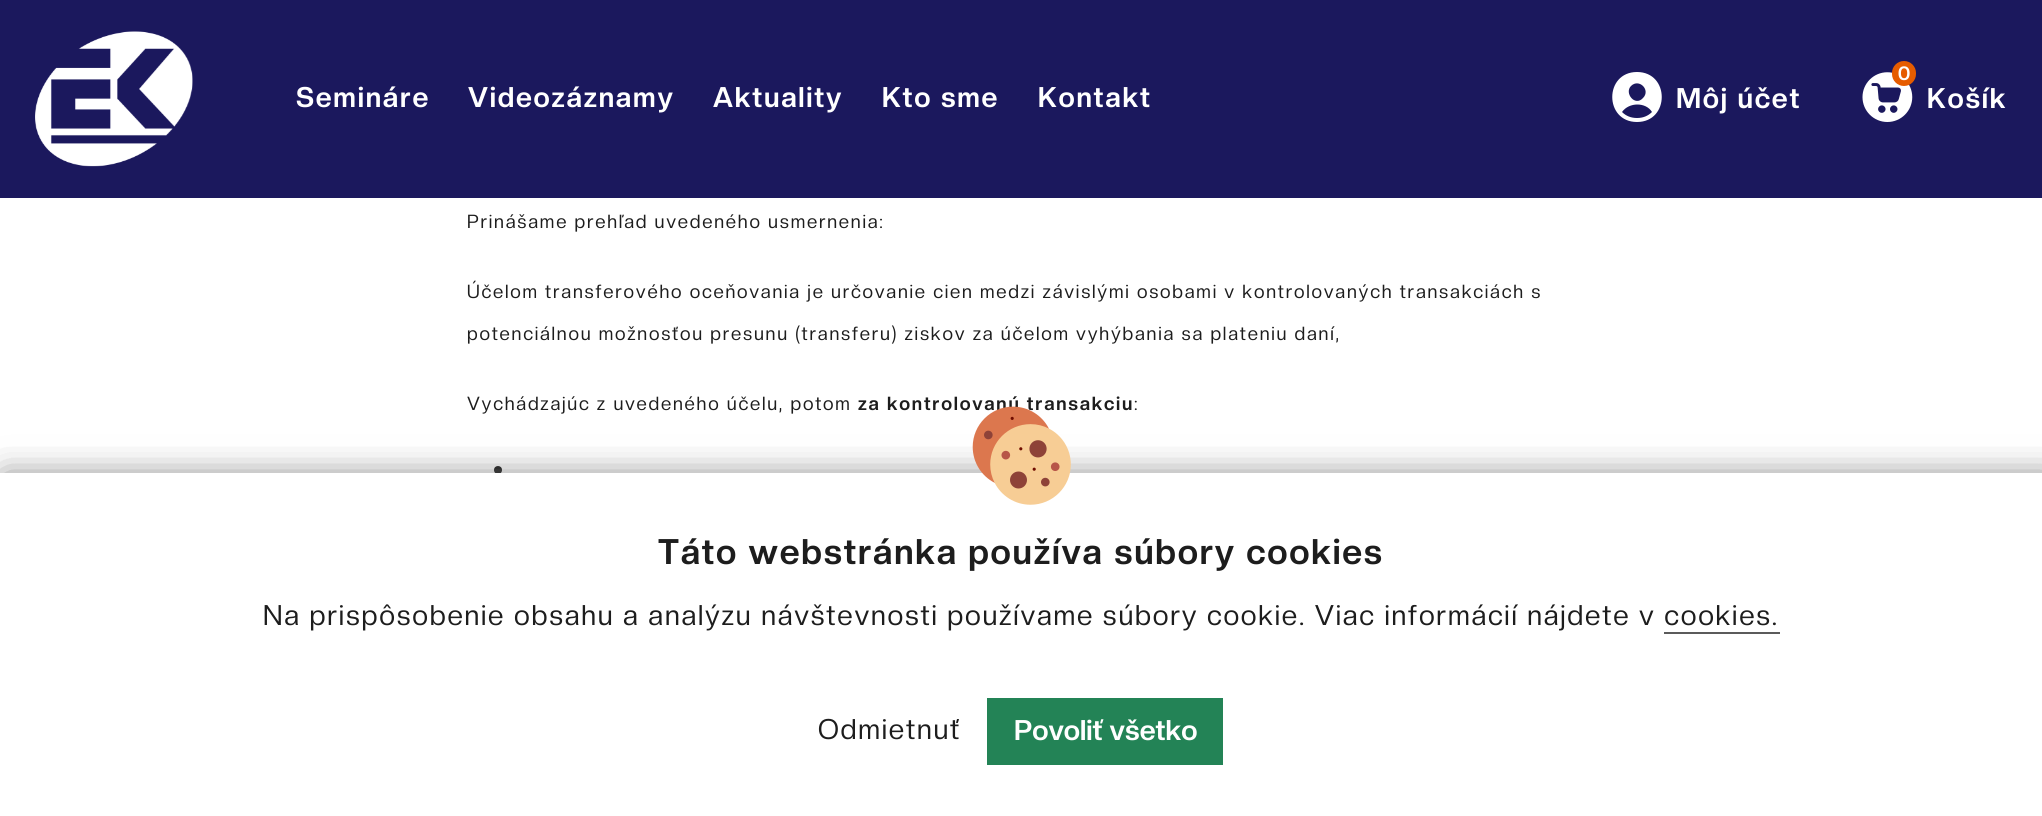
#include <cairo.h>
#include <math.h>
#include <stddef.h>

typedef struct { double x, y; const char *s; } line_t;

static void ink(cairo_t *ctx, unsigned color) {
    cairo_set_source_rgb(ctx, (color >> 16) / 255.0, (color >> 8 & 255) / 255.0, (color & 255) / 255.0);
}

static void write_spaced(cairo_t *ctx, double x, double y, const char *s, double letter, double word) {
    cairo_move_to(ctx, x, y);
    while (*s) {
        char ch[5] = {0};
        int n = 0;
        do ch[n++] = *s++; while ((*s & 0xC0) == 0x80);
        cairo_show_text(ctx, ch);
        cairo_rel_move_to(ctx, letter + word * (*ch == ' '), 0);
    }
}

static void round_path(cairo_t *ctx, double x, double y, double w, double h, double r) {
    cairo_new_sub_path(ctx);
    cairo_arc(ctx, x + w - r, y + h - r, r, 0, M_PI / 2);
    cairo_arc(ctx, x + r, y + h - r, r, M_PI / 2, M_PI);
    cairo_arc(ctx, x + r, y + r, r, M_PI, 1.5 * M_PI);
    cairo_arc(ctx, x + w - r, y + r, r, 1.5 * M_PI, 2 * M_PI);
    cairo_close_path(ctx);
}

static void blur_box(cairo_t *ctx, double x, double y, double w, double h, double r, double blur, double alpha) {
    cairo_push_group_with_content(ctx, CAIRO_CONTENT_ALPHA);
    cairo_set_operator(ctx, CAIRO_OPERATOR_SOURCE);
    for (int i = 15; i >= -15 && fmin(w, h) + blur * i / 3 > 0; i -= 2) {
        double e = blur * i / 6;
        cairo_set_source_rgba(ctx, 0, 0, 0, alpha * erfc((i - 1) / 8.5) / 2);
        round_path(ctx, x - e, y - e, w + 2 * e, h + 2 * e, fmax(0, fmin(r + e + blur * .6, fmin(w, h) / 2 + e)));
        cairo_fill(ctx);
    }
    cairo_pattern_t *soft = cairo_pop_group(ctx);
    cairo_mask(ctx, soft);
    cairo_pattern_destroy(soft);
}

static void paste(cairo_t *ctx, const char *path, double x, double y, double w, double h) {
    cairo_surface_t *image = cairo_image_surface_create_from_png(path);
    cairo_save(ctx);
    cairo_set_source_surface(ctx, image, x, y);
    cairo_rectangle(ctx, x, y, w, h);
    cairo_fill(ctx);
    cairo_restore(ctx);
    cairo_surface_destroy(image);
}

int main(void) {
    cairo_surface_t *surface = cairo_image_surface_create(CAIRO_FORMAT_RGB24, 2042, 816);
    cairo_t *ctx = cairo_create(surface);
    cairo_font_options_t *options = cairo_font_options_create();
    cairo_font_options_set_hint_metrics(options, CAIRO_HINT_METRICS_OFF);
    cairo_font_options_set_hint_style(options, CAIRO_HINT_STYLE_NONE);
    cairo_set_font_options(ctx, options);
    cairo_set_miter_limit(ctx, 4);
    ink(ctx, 0xFFFFFF);
    cairo_paint(ctx);
    ink(ctx, 0x1B185D);
    cairo_rectangle(ctx, 0, 0, 2042, 198);
    cairo_fill(ctx);
    paste(ctx, "media/1.png", 35, 31, 158, 136);
    cairo_select_font_face(ctx, "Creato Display", CAIRO_FONT_SLANT_NORMAL, CAIRO_FONT_WEIGHT_BOLD);
    cairo_set_font_size(ctx, 28);
    ink(ctx, 0xFFFFFF);
    {
        static const line_t items[] = {
            {296, 107, "Semináre"},
            {468, 107, "Videozáznamy"},
            {713, 107, "Aktuality"},
            {882, 107, "Kto sme"},
            {1038, 107, "Kontakt"},
        };
        for (size_t i = 0; i < sizeof items / sizeof *items; i++) {
            write_spaced(ctx, items[i].x, items[i].y, items[i].s, 1.75, 0);
        }
    }
    cairo_new_path(ctx);
    cairo_move_to(ctx, 1637, 72);
    cairo_curve_to(ctx, 1604, 72, 1604, 122, 1637, 122);
    cairo_curve_to(ctx, 1670, 122, 1670, 72, 1637, 72);
    cairo_close_path(ctx);
    cairo_move_to(ctx, 1631, 86);
    cairo_curve_to(ctx, 1639, 78, 1651, 90, 1643, 98);
    cairo_curve_to(ctx, 1635, 107, 1624, 93, 1631, 86);
    cairo_close_path(ctx);
    cairo_move_to(ctx, 1637, 118);
    cairo_curve_to(ctx, 1631, 118, 1626, 116, 1622, 112);
    cairo_curve_to(ctx, 1629, 102, 1646, 102, 1652, 112);
    cairo_curve_to(ctx, 1648, 116, 1643, 118, 1637, 118);
    cairo_close_path(ctx);
    cairo_fill(ctx);
    write_spaced(ctx, 1676, 108, "Môj účet", 1.75, 0);
    paste(ctx, "media/2.png", 1862, 72, 51, 50);
    ink(ctx, 0xE65C00);
    round_path(ctx, 1892, 61, 24, 25, 12);
    cairo_fill(ctx);
    cairo_set_font_size(ctx, 19);
    ink(ctx, 0xFFFFFF);
    write_spaced(ctx, 1898, 80, "0", 1.75, 0);
    cairo_set_font_size(ctx, 28);
    write_spaced(ctx, 1927, 108, "Košík", 1.75, 0);
    cairo_select_font_face(ctx, "Creato Display", CAIRO_FONT_SLANT_NORMAL, CAIRO_FONT_WEIGHT_NORMAL);
    cairo_set_font_size(ctx, 18.67);
    ink(ctx, 0x1D1D1D);
    {
        static const line_t items[] = {
            {467, 228, "Prinášame prehľad uvedeného usmernenia:"},
            {467, 298, "Účelom transferového oceňovania je určovanie cien medzi závislými osobami v kontrolovaných transakciách s"},
            {467, 340, "potenciálnou možnosťou presunu (transferu) ziskov za účelom vyhýbania sa plateniu daní,"},
            {467, 410, "Vychádzajúc z uvedeného účelu, potom"},
        };
        for (size_t i = 0; i < sizeof items / sizeof *items; i++) {
            write_spaced(ctx, items[i].x, items[i].y, items[i].s, 1.75, 0);
        }
    }
    cairo_select_font_face(ctx, "Creato Display", CAIRO_FONT_SLANT_NORMAL, CAIRO_FONT_WEIGHT_BOLD);
    write_spaced(ctx, 858, 410, "za kontrolovanú transakciu", 1.75, 0);
    cairo_select_font_face(ctx, "Creato Display", CAIRO_FONT_SLANT_NORMAL, CAIRO_FONT_WEIGHT_NORMAL);
    write_spaced(ctx, 1134, 410, ":", 1.75, 0);
    cairo_new_path(ctx);
    cairo_arc(ctx, 498, 470, 4, 0, 2 * M_PI);
    cairo_fill(ctx);
    ink(ctx, 0x696969);
    blur_box(ctx, 5, 478, 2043, 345, 0, 17.5, 0.5);
    ink(ctx, 0xFFFFFF);
    cairo_rectangle(ctx, 0, 473, 2042, 343);
    cairo_fill(ctx);
    cairo_save(ctx);
    cairo_rectangle(ctx, 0, 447, 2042, 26);
    cairo_clip(ctx);
    ink(ctx, 0x696969);
    blur_box(ctx, 5, 478, 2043, 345, 0, 17.5, 0.5);
    cairo_restore(ctx);
    paste(ctx, "media/3.png", 972, 406, 99, 99);
    cairo_select_font_face(ctx, "Creato Display", CAIRO_FONT_SLANT_NORMAL, CAIRO_FONT_WEIGHT_BOLD);
    cairo_set_font_size(ctx, 35);
    ink(ctx, 0x1D1D1D);
    write_spaced(ctx, 658, 564, "Táto webstránka používa súbory cookies", 1.75, 0);
    cairo_select_font_face(ctx, "Creato Display", CAIRO_FONT_SLANT_NORMAL, CAIRO_FONT_WEIGHT_NORMAL);
    cairo_set_font_size(ctx, 28);
    write_spaced(ctx, 263, 625, "Na prispôsobenie obsahu a analýzu návštevnosti používame súbory cookie. Viac informácií nájdete v cookies.", 1.75, 0);
    ink(ctx, 0x5B5B5B);
    cairo_rectangle(ctx, 1664, 632, 116, 2);
    cairo_fill(ctx);
    ink(ctx, 0x1D1D1D);
    write_spaced(ctx, 818, 739, "Odmietnuť", 1.75, 0);
    ink(ctx, 0x238356);
    cairo_rectangle(ctx, 987, 698, 236, 67);
    cairo_fill(ctx);
    cairo_select_font_face(ctx, "Creato Display", CAIRO_FONT_SLANT_NORMAL, CAIRO_FONT_WEIGHT_BOLD);
    ink(ctx, 0xFFFFFF);
    cairo_move_to(ctx, 1014, 740);
    cairo_show_text(ctx, "Povoliť všetko");
    cairo_surface_write_to_png(surface, "image.png");
    cairo_font_options_destroy(options);
    cairo_destroy(ctx);
    cairo_surface_destroy(surface);
    return 0;
}
